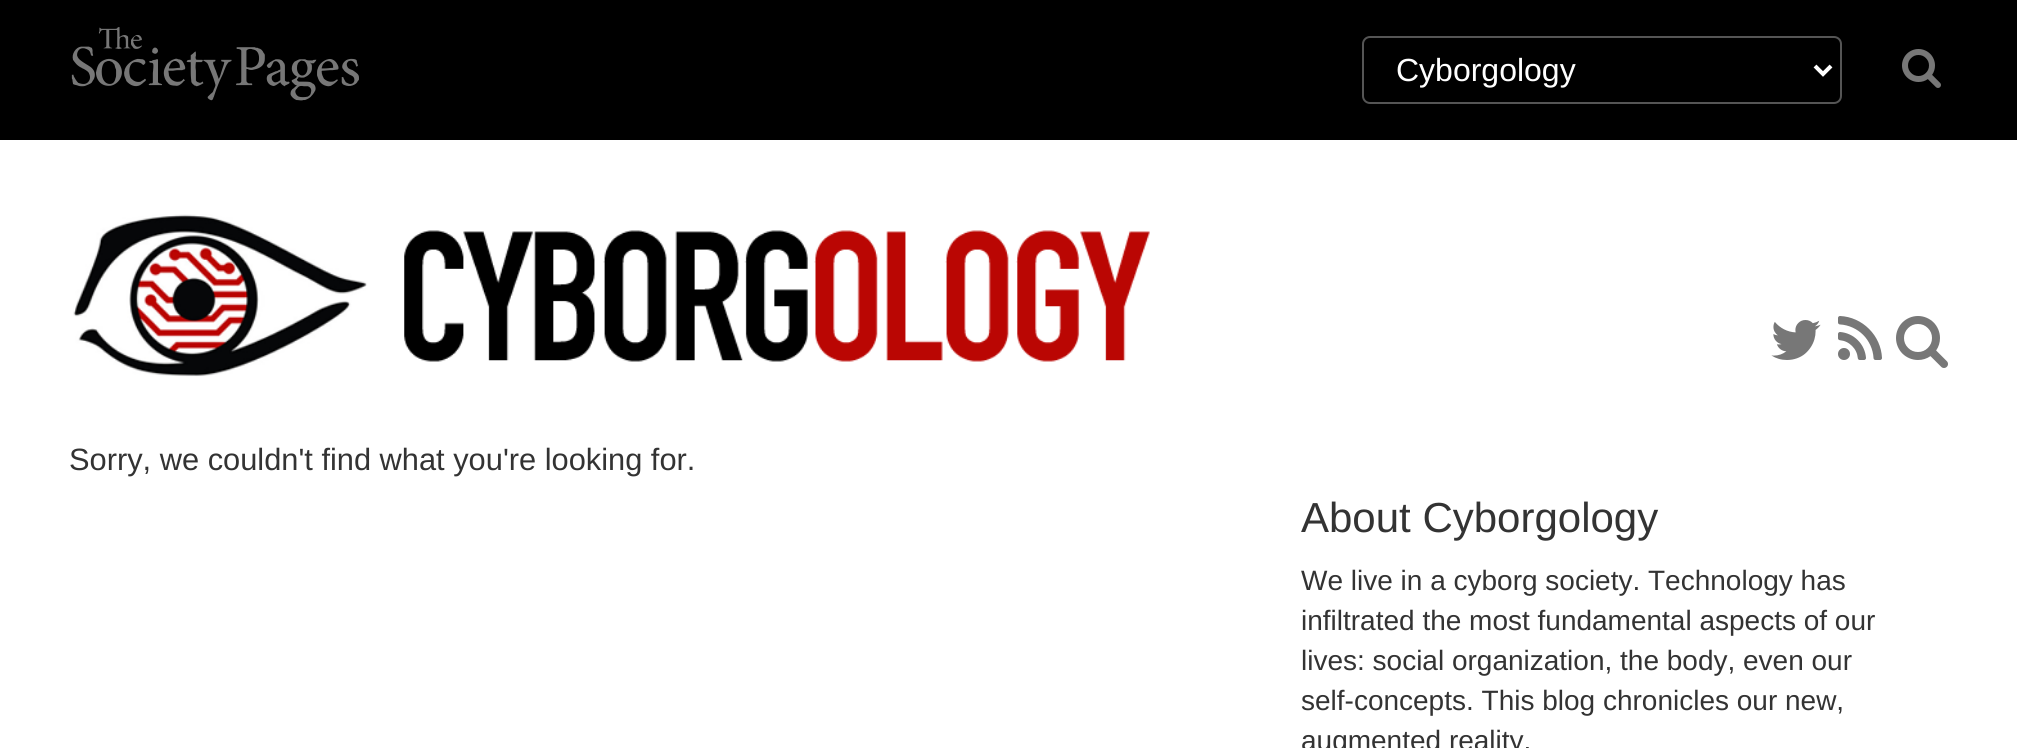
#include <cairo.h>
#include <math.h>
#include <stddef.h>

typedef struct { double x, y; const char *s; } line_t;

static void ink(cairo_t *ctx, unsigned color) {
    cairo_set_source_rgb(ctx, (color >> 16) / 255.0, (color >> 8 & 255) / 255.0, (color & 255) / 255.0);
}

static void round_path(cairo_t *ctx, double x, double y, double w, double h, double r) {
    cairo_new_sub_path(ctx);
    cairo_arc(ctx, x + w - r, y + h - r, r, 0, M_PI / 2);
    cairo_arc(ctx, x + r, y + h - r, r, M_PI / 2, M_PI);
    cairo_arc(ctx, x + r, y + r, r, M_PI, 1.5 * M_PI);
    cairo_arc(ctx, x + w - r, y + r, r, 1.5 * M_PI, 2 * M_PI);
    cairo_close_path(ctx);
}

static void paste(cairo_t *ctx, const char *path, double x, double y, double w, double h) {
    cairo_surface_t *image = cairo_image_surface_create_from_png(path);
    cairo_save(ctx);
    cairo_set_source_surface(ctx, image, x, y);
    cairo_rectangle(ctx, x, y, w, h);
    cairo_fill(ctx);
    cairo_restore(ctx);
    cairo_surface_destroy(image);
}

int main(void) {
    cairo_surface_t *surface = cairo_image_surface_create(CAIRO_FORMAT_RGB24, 2017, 748);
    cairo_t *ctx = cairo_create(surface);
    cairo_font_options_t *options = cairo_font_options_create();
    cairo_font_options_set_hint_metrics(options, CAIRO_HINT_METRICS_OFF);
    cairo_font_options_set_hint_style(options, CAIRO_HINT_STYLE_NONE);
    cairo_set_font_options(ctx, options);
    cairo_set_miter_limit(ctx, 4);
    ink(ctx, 0xFFFFFF);
    cairo_paint(ctx);
    ink(ctx, 0x000000);
    cairo_rectangle(ctx, 0, 0, 2017, 140);
    cairo_fill(ctx);
    cairo_select_font_face(ctx, "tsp", CAIRO_FONT_SLANT_NORMAL, CAIRO_FONT_WEIGHT_NORMAL);
    cairo_set_font_size(ctx, 294);
    ink(ctx, 0x777777);
    cairo_move_to(ctx, 69, 212);
    cairo_show_text(ctx, "2");
    round_path(ctx, 1363, 37, 478, 66, 7);
    ink(ctx, 0x555555);
    cairo_stroke(ctx);
    cairo_new_path(ctx);
    cairo_move_to(ctx, 1815, 66);
    cairo_line_to(ctx, 1823, 74);
    cairo_line_to(ctx, 1831, 66);
    ink(ctx, 0xFFFFFF);
    cairo_set_line_width(ctx, 4);
    cairo_stroke(ctx);
    cairo_select_font_face(ctx, "Liberation Sans", CAIRO_FONT_SLANT_NORMAL, CAIRO_FONT_WEIGHT_NORMAL);
    cairo_set_font_size(ctx, 32);
    cairo_move_to(ctx, 1396, 81);
    cairo_show_text(ctx, "Cyborgology");
    paste(ctx, "media/1.png", 1902, 49, 39, 39);
    paste(ctx, "media/2.png", 73, 214, 1077, 163);
    paste(ctx, "media/3.png", 1771, 320, 50, 40);
    paste(ctx, "media/4.png", 1838, 316, 44, 44);
    paste(ctx, "media/5.png", 1896, 316, 52, 52);
    cairo_set_font_size(ctx, 30.8);
    ink(ctx, 0x333333);
    cairo_move_to(ctx, 69, 470);
    cairo_show_text(ctx, "Sorry, we couldn't find what you're looking for.");
    cairo_set_font_size(ctx, 42);
    cairo_move_to(ctx, 1301, 532);
    cairo_show_text(ctx, "About Cyborgology");
    cairo_set_font_size(ctx, 28);
    {
        static const line_t items[] = {
            {1301, 590, "We live in a cyborg society. Technology has"},
            {1301, 630, "infiltrated the most fundamental aspects of our"},
            {1301, 670, "lives: social organization, the body, even our"},
            {1301, 710, "self-concepts. This blog chronicles our new,"},
            {1301, 750, "augmented reality."},
        };
        for (size_t i = 0; i < sizeof items / sizeof *items; i++) {
            cairo_move_to(ctx, items[i].x, items[i].y);
            cairo_show_text(ctx, items[i].s);
        }
    }
    cairo_surface_write_to_png(surface, "image.png");
    cairo_font_options_destroy(options);
    cairo_destroy(ctx);
    cairo_surface_destroy(surface);
    return 0;
}
